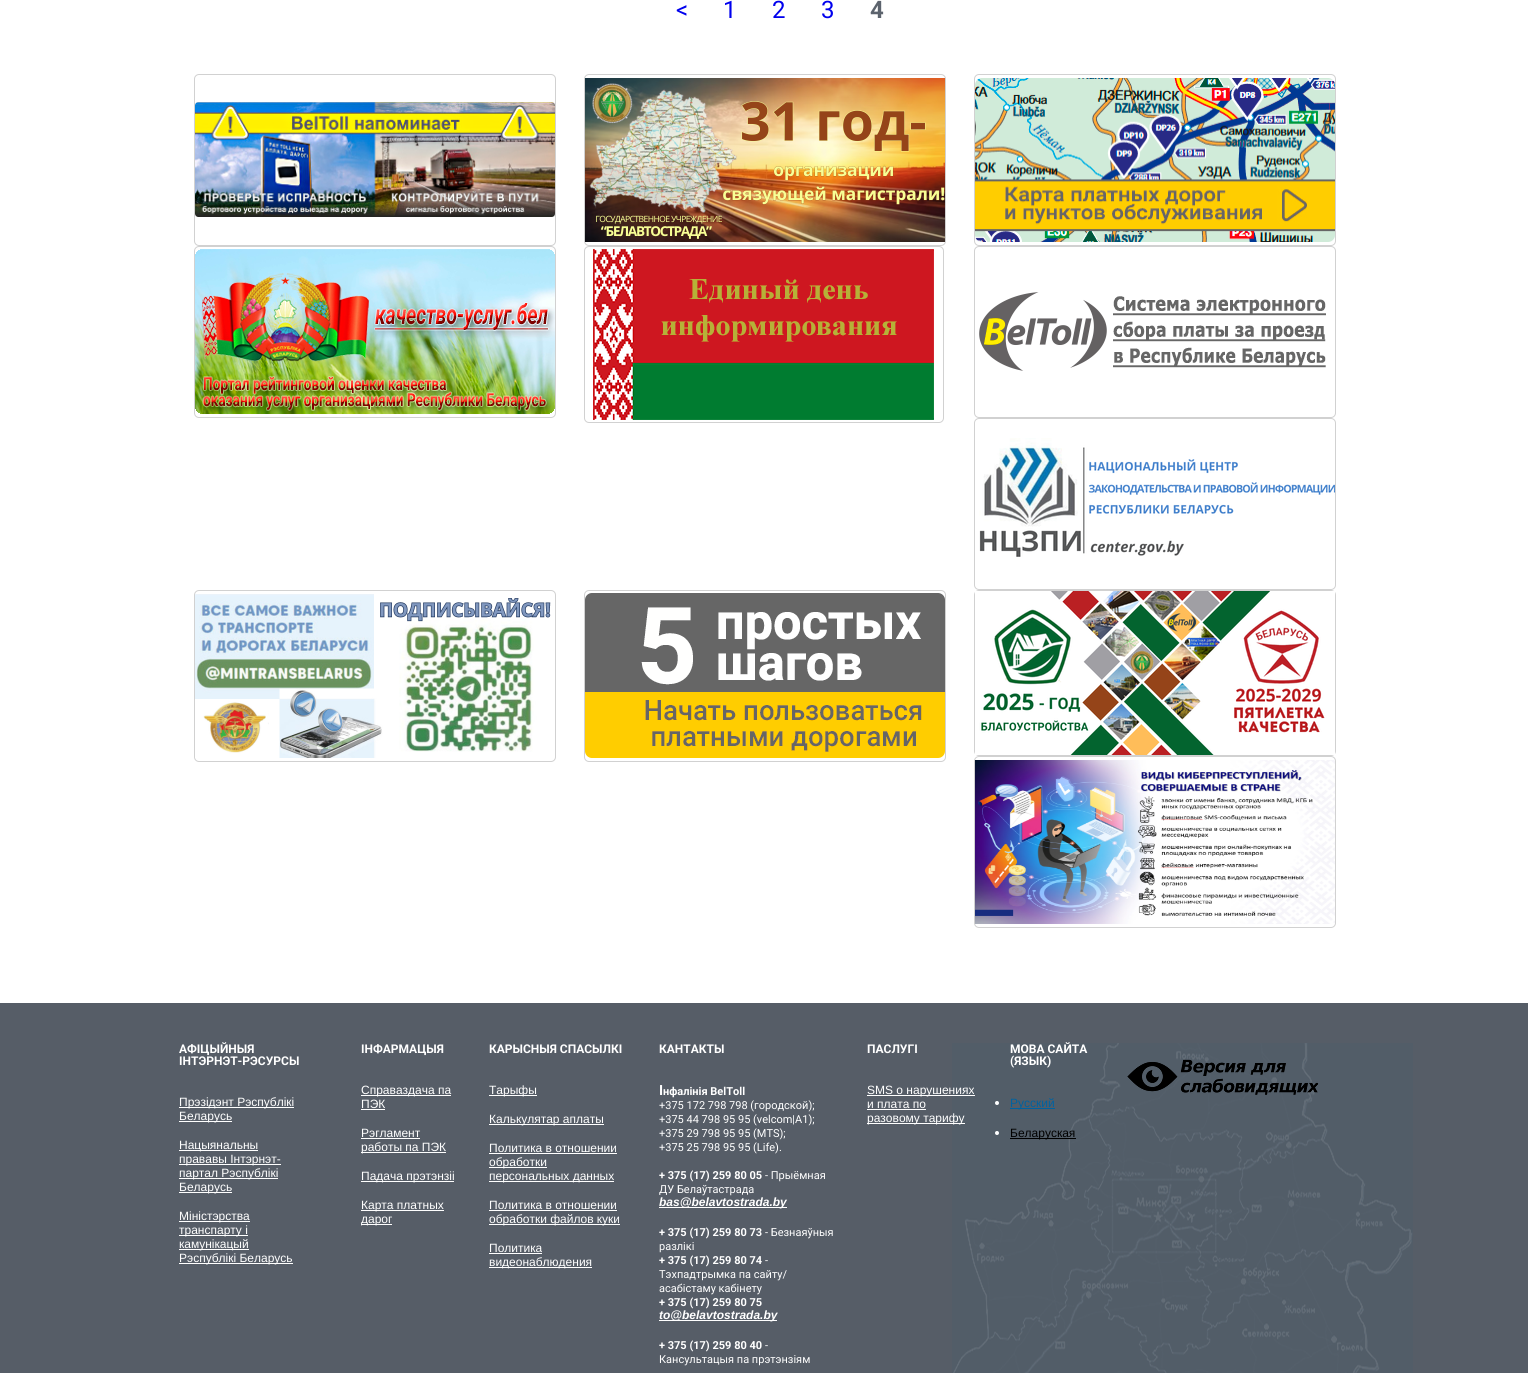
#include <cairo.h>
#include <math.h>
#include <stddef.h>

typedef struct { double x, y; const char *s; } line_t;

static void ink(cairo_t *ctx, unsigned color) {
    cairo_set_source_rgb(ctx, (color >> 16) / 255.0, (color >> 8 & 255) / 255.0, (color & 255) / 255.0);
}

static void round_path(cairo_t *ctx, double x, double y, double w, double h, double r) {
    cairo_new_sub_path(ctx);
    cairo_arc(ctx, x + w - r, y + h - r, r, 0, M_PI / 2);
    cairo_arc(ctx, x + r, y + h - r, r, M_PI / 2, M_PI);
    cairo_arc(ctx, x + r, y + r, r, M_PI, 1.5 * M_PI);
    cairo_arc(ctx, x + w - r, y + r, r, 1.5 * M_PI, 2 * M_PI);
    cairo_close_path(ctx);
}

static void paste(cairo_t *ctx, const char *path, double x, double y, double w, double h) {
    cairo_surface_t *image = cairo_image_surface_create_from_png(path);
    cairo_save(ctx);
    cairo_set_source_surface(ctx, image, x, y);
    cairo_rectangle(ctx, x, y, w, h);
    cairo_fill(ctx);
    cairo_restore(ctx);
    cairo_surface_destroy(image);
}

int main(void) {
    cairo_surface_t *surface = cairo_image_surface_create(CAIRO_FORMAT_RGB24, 1528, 1373);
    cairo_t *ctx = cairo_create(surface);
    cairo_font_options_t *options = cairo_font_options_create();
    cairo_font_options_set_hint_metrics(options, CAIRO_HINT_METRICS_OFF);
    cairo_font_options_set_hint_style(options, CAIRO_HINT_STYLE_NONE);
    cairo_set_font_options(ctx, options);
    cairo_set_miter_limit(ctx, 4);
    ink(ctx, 0xFFFFFF);
    cairo_paint(ctx);
    cairo_select_font_face(ctx, "Roboto", CAIRO_FONT_SLANT_NORMAL, CAIRO_FONT_WEIGHT_NORMAL);
    cairo_set_font_size(ctx, 24);
    ink(ctx, 0x0000EE);
    {
        static const line_t items[] = {
            {676, 18, "<"},
            {723, 18, "1"},
            {772, 18, "2"},
            {821, 18, "3"},
        };
        for (size_t i = 0; i < sizeof items / sizeof *items; i++) {
            cairo_move_to(ctx, items[i].x, items[i].y);
            cairo_show_text(ctx, items[i].s);
        }
    }
    cairo_select_font_face(ctx, "Roboto", CAIRO_FONT_SLANT_NORMAL, CAIRO_FONT_WEIGHT_BOLD);
    ink(ctx, 0x5C636D);
    cairo_move_to(ctx, 870, 18);
    cairo_show_text(ctx, "4");
    round_path(ctx, 194.5, 74.5, 361, 171, 4.5);
    ink(ctx, 0xD1D1D1);
    cairo_set_line_width(ctx, 1);
    cairo_stroke(ctx);
    paste(ctx, "media/1.png", 195, 102, 360, 115);
    round_path(ctx, 584.5, 74.5, 361, 171, 4.5);
    cairo_stroke(ctx);
    paste(ctx, "media/2.png", 585, 78, 360, 164);
    round_path(ctx, 974.5, 74.5, 361, 171, 4.5);
    cairo_stroke(ctx);
    paste(ctx, "media/3.png", 975, 78, 360, 164);
    round_path(ctx, 194.5, 246.5, 361, 171, 4.5);
    cairo_stroke(ctx);
    paste(ctx, "media/4.png", 195, 249, 360, 165);
    round_path(ctx, 584.5, 246.5, 359, 176, 4.5);
    cairo_stroke(ctx);
    paste(ctx, "media/5.png", 593, 249, 341, 171);
    round_path(ctx, 974.5, 246.5, 361, 171, 4.5);
    cairo_stroke(ctx);
    paste(ctx, "media/6.png", 979, 292, 347, 79);
    round_path(ctx, 974.5, 418.5, 361, 171, 4.5);
    cairo_stroke(ctx);
    paste(ctx, "media/7.png", 979, 438, 356, 119);
    round_path(ctx, 194.5, 590.5, 361, 171, 4.5);
    cairo_stroke(ctx);
    paste(ctx, "media/8.png", 195, 594, 356, 164);
    round_path(ctx, 584.5, 590.5, 361, 171, 4.5);
    cairo_stroke(ctx);
    paste(ctx, "media/9.png", 585, 593, 360, 165);
    round_path(ctx, 974.5, 590.5, 361, 165, 4.5);
    cairo_stroke(ctx);
    paste(ctx, "media/10.png", 975, 591, 360, 164);
    round_path(ctx, 974.5, 756.5, 361, 171, 4.5);
    cairo_stroke(ctx);
    paste(ctx, "media/11.png", 975, 760, 360, 164);
    ink(ctx, 0x565D67);
    cairo_rectangle(ctx, 0, 1003, 1528, 370);
    cairo_fill(ctx);
    paste(ctx, "media/12.png", 952, 1043, 461, 330);
    cairo_set_font_size(ctx, 12);
    ink(ctx, 0xFFFFFF);
    cairo_move_to(ctx, 179, 1053);
    cairo_show_text(ctx, "АФІЦЫЙНЫЯ");
    cairo_move_to(ctx, 179, 1065);
    cairo_show_text(ctx, "ІНТЭРНЭТ-РЭСУРСЫ");
    cairo_rectangle(ctx, 179, 1107, 115, 1);
    cairo_fill(ctx);
    cairo_select_font_face(ctx, "Liberation Sans", CAIRO_FONT_SLANT_NORMAL, CAIRO_FONT_WEIGHT_NORMAL);
    cairo_move_to(ctx, 179, 1106);
    cairo_show_text(ctx, "Прэзідэнт Рэспублікі");
    cairo_rectangle(ctx, 179, 1121, 53, 1);
    cairo_fill(ctx);
    cairo_move_to(ctx, 179, 1120);
    cairo_show_text(ctx, "Беларусь");
    cairo_rectangle(ctx, 179, 1150, 79, 1);
    cairo_fill(ctx);
    cairo_move_to(ctx, 179, 1149);
    cairo_show_text(ctx, "Нацыянальны");
    cairo_rectangle(ctx, 179, 1164, 102, 1);
    cairo_fill(ctx);
    cairo_move_to(ctx, 179, 1163);
    cairo_show_text(ctx, "прававы Інтэрнэт-");
    cairo_rectangle(ctx, 179, 1178, 99, 1);
    cairo_fill(ctx);
    cairo_move_to(ctx, 179, 1177);
    cairo_show_text(ctx, "партал Рэспублікі");
    cairo_rectangle(ctx, 179, 1192, 53, 1);
    cairo_fill(ctx);
    cairo_move_to(ctx, 179, 1191);
    cairo_show_text(ctx, "Беларусь");
    cairo_rectangle(ctx, 179, 1221, 71, 1);
    cairo_fill(ctx);
    cairo_move_to(ctx, 179, 1220);
    cairo_show_text(ctx, "Міністэрства");
    cairo_rectangle(ctx, 179, 1235, 69, 1);
    cairo_fill(ctx);
    cairo_move_to(ctx, 179, 1234);
    cairo_show_text(ctx, "транспарту і");
    cairo_rectangle(ctx, 179, 1249, 70, 1);
    cairo_fill(ctx);
    cairo_move_to(ctx, 179, 1248);
    cairo_show_text(ctx, "камунікацый");
    cairo_rectangle(ctx, 179, 1263, 114, 1);
    cairo_fill(ctx);
    cairo_move_to(ctx, 179, 1262);
    cairo_show_text(ctx, "Рэспублікі Беларусь");
    cairo_select_font_face(ctx, "Roboto", CAIRO_FONT_SLANT_NORMAL, CAIRO_FONT_WEIGHT_BOLD);
    cairo_move_to(ctx, 361, 1053);
    cairo_show_text(ctx, "ІНФАРМАЦЫЯ");
    cairo_rectangle(ctx, 361, 1095, 90, 1);
    cairo_fill(ctx);
    cairo_select_font_face(ctx, "Liberation Sans", CAIRO_FONT_SLANT_NORMAL, CAIRO_FONT_WEIGHT_NORMAL);
    cairo_move_to(ctx, 361, 1094);
    cairo_show_text(ctx, "Справаздача па");
    cairo_move_to(ctx, 361, 1108);
    cairo_show_text(ctx, "ПЭК");
    cairo_rectangle(ctx, 361, 1109, 24, 1);
    cairo_fill(ctx);
    cairo_move_to(ctx, 361, 1137);
    cairo_show_text(ctx, "Рэгламент");
    cairo_rectangle(ctx, 361, 1138, 59, 1);
    cairo_fill(ctx);
    cairo_rectangle(ctx, 361, 1152, 85, 1);
    cairo_fill(ctx);
    cairo_move_to(ctx, 361, 1151);
    cairo_show_text(ctx, "работы па ПЭК");
    cairo_rectangle(ctx, 361, 1181, 93, 1);
    cairo_fill(ctx);
    cairo_move_to(ctx, 361, 1180);
    cairo_show_text(ctx, "Падача прэтэнзіі");
    cairo_rectangle(ctx, 361, 1210, 83, 1);
    cairo_fill(ctx);
    cairo_move_to(ctx, 361, 1209);
    cairo_show_text(ctx, "Карта платных");
    cairo_rectangle(ctx, 361, 1224, 31, 1);
    cairo_fill(ctx);
    cairo_move_to(ctx, 361, 1223);
    cairo_show_text(ctx, "дарог");
    cairo_select_font_face(ctx, "Roboto", CAIRO_FONT_SLANT_NORMAL, CAIRO_FONT_WEIGHT_BOLD);
    cairo_move_to(ctx, 489, 1053);
    cairo_show_text(ctx, "КАРЫСНЫЯ СПАСЫЛКІ");
    cairo_rectangle(ctx, 489, 1095, 48, 1);
    cairo_fill(ctx);
    cairo_select_font_face(ctx, "Liberation Sans", CAIRO_FONT_SLANT_NORMAL, CAIRO_FONT_WEIGHT_NORMAL);
    cairo_move_to(ctx, 489, 1094);
    cairo_show_text(ctx, "Тарыфы");
    cairo_rectangle(ctx, 489, 1124, 115, 1);
    cairo_fill(ctx);
    cairo_move_to(ctx, 489, 1123);
    cairo_show_text(ctx, "Калькулятар аплаты");
    cairo_move_to(ctx, 489, 1152);
    cairo_show_text(ctx, "Политика в отношении");
    cairo_rectangle(ctx, 489, 1153, 128, 1);
    cairo_fill(ctx);
    cairo_rectangle(ctx, 489, 1167, 58, 1);
    cairo_fill(ctx);
    cairo_move_to(ctx, 489, 1166);
    cairo_show_text(ctx, "обработки");
    cairo_rectangle(ctx, 489, 1181, 125, 1);
    cairo_fill(ctx);
    cairo_move_to(ctx, 489, 1180);
    cairo_show_text(ctx, "персональных данных");
    cairo_move_to(ctx, 489, 1209);
    cairo_show_text(ctx, "Политика в отношении");
    cairo_rectangle(ctx, 489, 1210, 128, 1);
    cairo_fill(ctx);
    cairo_rectangle(ctx, 489, 1224, 131, 1);
    cairo_fill(ctx);
    cairo_move_to(ctx, 489, 1223);
    cairo_show_text(ctx, "обработки файлов куки");
    cairo_move_to(ctx, 489, 1252);
    cairo_show_text(ctx, "Политика");
    cairo_rectangle(ctx, 489, 1253, 53, 1);
    cairo_fill(ctx);
    cairo_rectangle(ctx, 489, 1267, 103, 1);
    cairo_fill(ctx);
    cairo_move_to(ctx, 489, 1266);
    cairo_show_text(ctx, "видеонаблюдения");
    cairo_select_font_face(ctx, "Roboto", CAIRO_FONT_SLANT_NORMAL, CAIRO_FONT_WEIGHT_BOLD);
    cairo_move_to(ctx, 659, 1053);
    cairo_show_text(ctx, "КАНТАКТЫ");
    cairo_set_font_size(ctx, 14);
    cairo_move_to(ctx, 659, 1095);
    cairo_show_text(ctx, "І");
    cairo_set_font_size(ctx, 11);
    cairo_move_to(ctx, 663, 1095);
    cairo_show_text(ctx, "нфалінія BelToll");
    cairo_select_font_face(ctx, "Roboto", CAIRO_FONT_SLANT_NORMAL, CAIRO_FONT_WEIGHT_NORMAL);
    {
        static const line_t items[] = {
            {659, 1109, "+375 172 798 798 (городской);"},
            {659, 1123, "+375 44 798 95 95 (velcom|A1);"},
            {659, 1137, "+375 29 798 95 95 (MTS);"},
            {659, 1151, "+375 25 798 95 95 (Life)."},
        };
        for (size_t i = 0; i < sizeof items / sizeof *items; i++) {
            cairo_move_to(ctx, items[i].x, items[i].y);
            cairo_show_text(ctx, items[i].s);
        }
    }
    cairo_select_font_face(ctx, "Roboto", CAIRO_FONT_SLANT_NORMAL, CAIRO_FONT_WEIGHT_BOLD);
    cairo_move_to(ctx, 659, 1179);
    cairo_show_text(ctx, "+ 375 (17) 259 80 05");
    cairo_select_font_face(ctx, "Roboto", CAIRO_FONT_SLANT_NORMAL, CAIRO_FONT_WEIGHT_NORMAL);
    cairo_move_to(ctx, 765, 1179);
    cairo_show_text(ctx, "- Прыёмная");
    cairo_move_to(ctx, 659, 1193);
    cairo_show_text(ctx, "ДУ Белаўтастрада");
    cairo_rectangle(ctx, 659, 1207, 128, 1);
    cairo_fill(ctx);
    cairo_select_font_face(ctx, "Liberation Sans", CAIRO_FONT_SLANT_ITALIC, CAIRO_FONT_WEIGHT_BOLD);
    cairo_set_font_size(ctx, 12);
    cairo_move_to(ctx, 659, 1206);
    cairo_show_text(ctx, "bas@belavtostrada.by");
    cairo_select_font_face(ctx, "Roboto", CAIRO_FONT_SLANT_NORMAL, CAIRO_FONT_WEIGHT_BOLD);
    cairo_set_font_size(ctx, 11);
    cairo_move_to(ctx, 659, 1236);
    cairo_show_text(ctx, "+ 375 (17) 259 80 73");
    cairo_select_font_face(ctx, "Roboto", CAIRO_FONT_SLANT_NORMAL, CAIRO_FONT_WEIGHT_NORMAL);
    cairo_move_to(ctx, 765, 1236);
    cairo_show_text(ctx, "- Безнаяўныя");
    cairo_move_to(ctx, 659, 1250);
    cairo_show_text(ctx, "разлікі");
    cairo_select_font_face(ctx, "Roboto", CAIRO_FONT_SLANT_NORMAL, CAIRO_FONT_WEIGHT_BOLD);
    cairo_move_to(ctx, 659, 1264);
    cairo_show_text(ctx, "+ 375 (17) 259 80 74");
    cairo_select_font_face(ctx, "Roboto", CAIRO_FONT_SLANT_NORMAL, CAIRO_FONT_WEIGHT_NORMAL);
    {
        static const line_t items[] = {
            {765, 1264, "-"},
            {659, 1278, "Тэхпадтрымка па сайту/"},
            {659, 1292, "асабістаму кабінету"},
        };
        for (size_t i = 0; i < sizeof items / sizeof *items; i++) {
            cairo_move_to(ctx, items[i].x, items[i].y);
            cairo_show_text(ctx, items[i].s);
        }
    }
    cairo_select_font_face(ctx, "Roboto", CAIRO_FONT_SLANT_NORMAL, CAIRO_FONT_WEIGHT_BOLD);
    cairo_move_to(ctx, 659, 1306);
    cairo_show_text(ctx, "+ 375 (17) 259 80 75");
    cairo_rectangle(ctx, 659, 1320, 118, 1);
    cairo_fill(ctx);
    cairo_select_font_face(ctx, "Liberation Sans", CAIRO_FONT_SLANT_ITALIC, CAIRO_FONT_WEIGHT_BOLD);
    cairo_set_font_size(ctx, 12);
    cairo_move_to(ctx, 659, 1319);
    cairo_show_text(ctx, "to@belavtostrada.by");
    cairo_select_font_face(ctx, "Roboto", CAIRO_FONT_SLANT_NORMAL, CAIRO_FONT_WEIGHT_BOLD);
    cairo_set_font_size(ctx, 11);
    cairo_move_to(ctx, 659, 1349);
    cairo_show_text(ctx, "+ 375 (17) 259 80 40");
    cairo_select_font_face(ctx, "Roboto", CAIRO_FONT_SLANT_NORMAL, CAIRO_FONT_WEIGHT_NORMAL);
    cairo_move_to(ctx, 765, 1349);
    cairo_show_text(ctx, "-");
    cairo_move_to(ctx, 659, 1363);
    cairo_show_text(ctx, "Кансультацыя па прэтэнзіям");
    cairo_select_font_face(ctx, "Roboto", CAIRO_FONT_SLANT_NORMAL, CAIRO_FONT_WEIGHT_BOLD);
    cairo_set_font_size(ctx, 12);
    cairo_move_to(ctx, 867, 1053);
    cairo_show_text(ctx, "ПАСЛУГІ");
    cairo_rectangle(ctx, 867, 1095, 108, 1);
    cairo_fill(ctx);
    cairo_select_font_face(ctx, "Liberation Sans", CAIRO_FONT_SLANT_NORMAL, CAIRO_FONT_WEIGHT_NORMAL);
    cairo_move_to(ctx, 867, 1094);
    cairo_show_text(ctx, "SMS о нарушениях");
    cairo_move_to(ctx, 867, 1108);
    cairo_show_text(ctx, "и плата по");
    cairo_rectangle(ctx, 867, 1109, 59, 1);
    cairo_fill(ctx);
    cairo_rectangle(ctx, 867, 1123, 98, 1);
    cairo_fill(ctx);
    cairo_move_to(ctx, 867, 1122);
    cairo_show_text(ctx, "разовому тарифу");
    cairo_select_font_face(ctx, "Roboto", CAIRO_FONT_SLANT_NORMAL, CAIRO_FONT_WEIGHT_BOLD);
    cairo_move_to(ctx, 1010, 1053);
    cairo_show_text(ctx, "МОВА САЙТА");
    cairo_move_to(ctx, 1010, 1065);
    cairo_show_text(ctx, "(ЯЗЫК)");
    cairo_new_path(ctx);
    cairo_arc(ctx, 997, 1103, 2, 0, 2 * M_PI);
    cairo_fill(ctx);
    ink(ctx, 0x0062A0);
    cairo_rectangle(ctx, 1010, 1108, 45, 1);
    cairo_fill(ctx);
    cairo_select_font_face(ctx, "Liberation Sans", CAIRO_FONT_SLANT_NORMAL, CAIRO_FONT_WEIGHT_NORMAL);
    cairo_move_to(ctx, 1010, 1107);
    cairo_show_text(ctx, "Русский");
    ink(ctx, 0xFFFFFF);
    cairo_new_path(ctx);
    cairo_arc(ctx, 997, 1133, 2, 0, 2 * M_PI);
    cairo_fill(ctx);
    ink(ctx, 0x000000);
    cairo_rectangle(ctx, 1010, 1138, 66, 1);
    cairo_fill(ctx);
    cairo_move_to(ctx, 1010, 1137);
    cairo_show_text(ctx, "Беларуская");
    paste(ctx, "media/13.png", 1127, 1059, 192, 36);
    cairo_surface_write_to_png(surface, "image.png");
    cairo_font_options_destroy(options);
    cairo_destroy(ctx);
    cairo_surface_destroy(surface);
    return 0;
}
